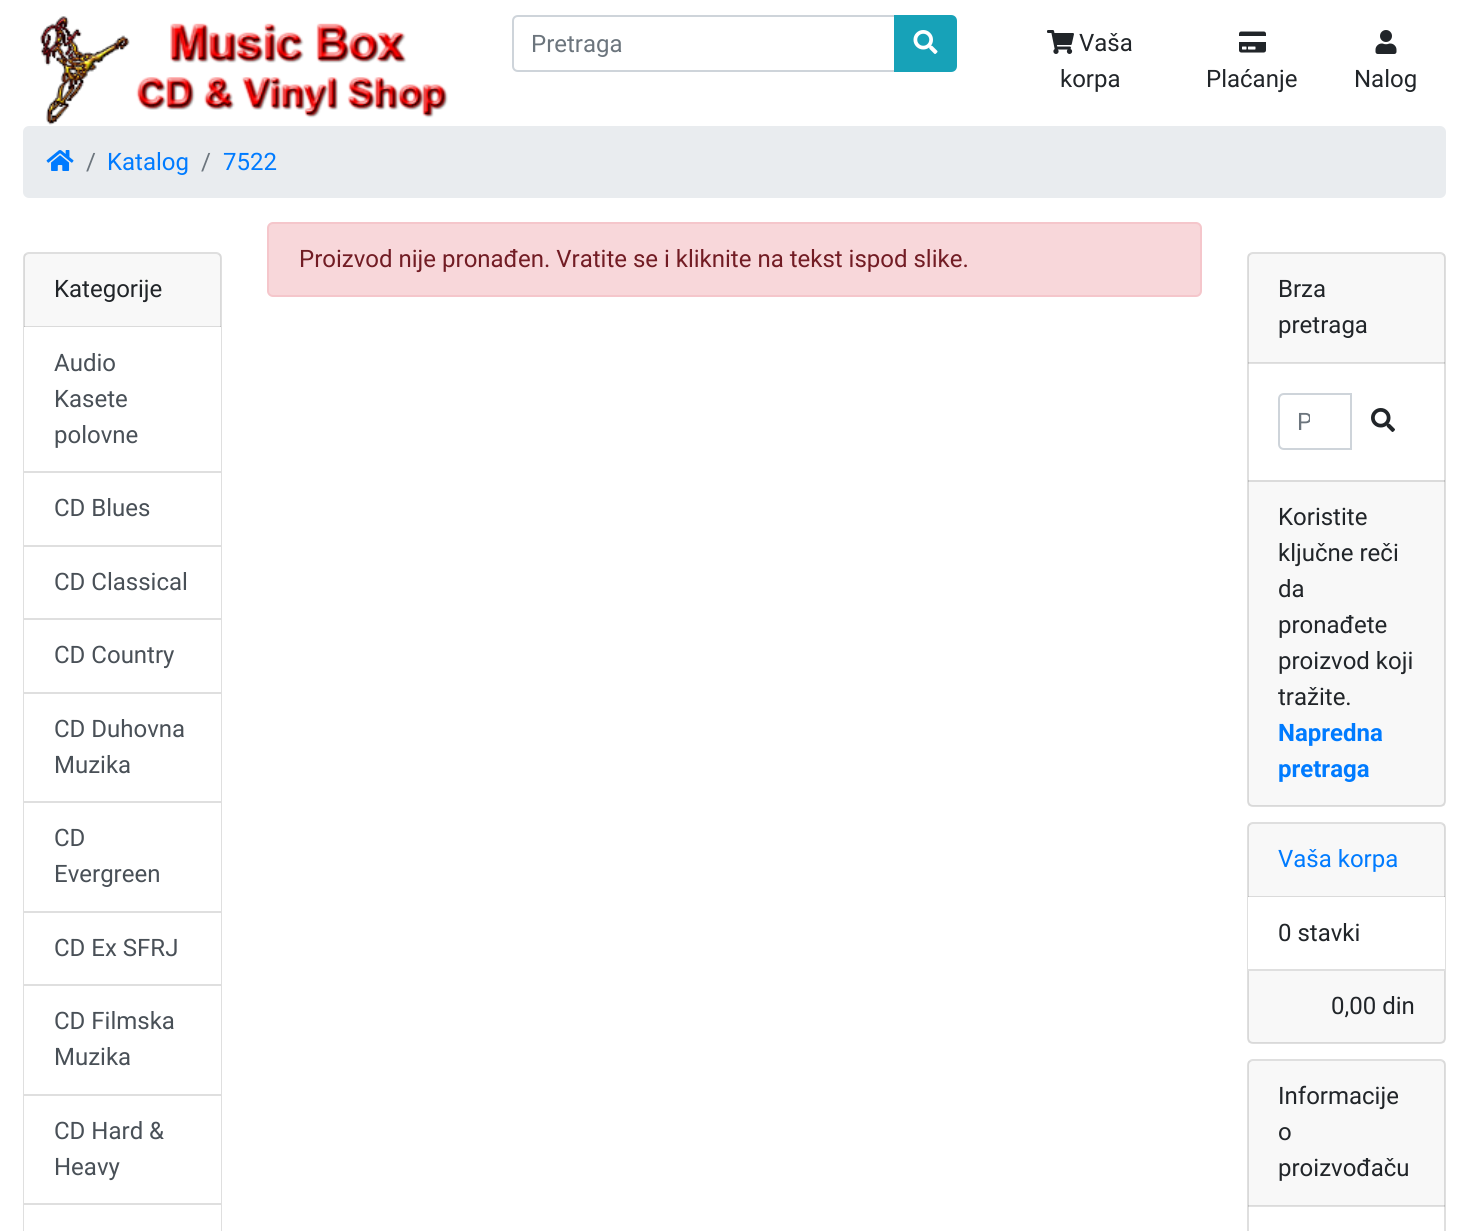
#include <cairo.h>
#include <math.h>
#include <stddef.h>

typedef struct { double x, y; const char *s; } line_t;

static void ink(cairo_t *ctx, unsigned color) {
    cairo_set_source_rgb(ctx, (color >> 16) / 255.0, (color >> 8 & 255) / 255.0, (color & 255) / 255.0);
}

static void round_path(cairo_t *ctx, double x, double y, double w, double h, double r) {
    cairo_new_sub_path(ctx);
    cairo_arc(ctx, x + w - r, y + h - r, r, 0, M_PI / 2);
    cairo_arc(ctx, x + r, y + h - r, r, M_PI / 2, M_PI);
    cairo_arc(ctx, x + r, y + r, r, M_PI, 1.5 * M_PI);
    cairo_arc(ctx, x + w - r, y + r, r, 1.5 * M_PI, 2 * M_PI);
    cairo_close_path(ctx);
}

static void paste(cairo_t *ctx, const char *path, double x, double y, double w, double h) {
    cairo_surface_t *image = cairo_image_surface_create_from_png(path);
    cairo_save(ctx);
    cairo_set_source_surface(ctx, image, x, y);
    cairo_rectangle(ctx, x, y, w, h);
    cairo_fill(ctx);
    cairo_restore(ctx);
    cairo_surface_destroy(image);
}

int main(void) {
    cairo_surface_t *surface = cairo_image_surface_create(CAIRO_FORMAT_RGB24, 1468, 1231);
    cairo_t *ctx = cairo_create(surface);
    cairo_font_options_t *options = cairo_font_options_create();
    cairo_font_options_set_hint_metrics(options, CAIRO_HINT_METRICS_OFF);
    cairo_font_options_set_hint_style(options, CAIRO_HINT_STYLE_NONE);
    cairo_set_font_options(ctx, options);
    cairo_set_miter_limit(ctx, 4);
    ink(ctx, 0xFFFFFF);
    cairo_paint(ctx);
    paste(ctx, "media/1.png", 40, 16, 408, 109);
    cairo_new_path(ctx);
    cairo_move_to(ctx, 518, 16);
    cairo_line_to(ctx, 895, 16);
    cairo_line_to(ctx, 895, 71);
    cairo_line_to(ctx, 518, 71);
    cairo_curve_to(ctx, 515, 71, 513, 69, 513, 66);
    cairo_line_to(ctx, 513, 21);
    cairo_curve_to(ctx, 513, 18, 515, 16, 518, 16);
    cairo_close_path(ctx);
    ink(ctx, 0xCED4DA);
    cairo_stroke(ctx);
    cairo_select_font_face(ctx, "Roboto", CAIRO_FONT_SLANT_NORMAL, CAIRO_FONT_WEIGHT_NORMAL);
    cairo_set_font_size(ctx, 24);
    ink(ctx, 0x6C757D);
    cairo_move_to(ctx, 531, 52);
    cairo_show_text(ctx, "Pretraga");
    ink(ctx, 0x17A2B8);
    cairo_new_path(ctx);
    cairo_move_to(ctx, 895, 16);
    cairo_line_to(ctx, 951, 16);
    cairo_curve_to(ctx, 954, 16, 956, 18, 956, 21);
    cairo_line_to(ctx, 956, 66);
    cairo_curve_to(ctx, 956, 69, 954, 71, 951, 71);
    cairo_line_to(ctx, 895, 71);
    cairo_close_path(ctx);
    cairo_fill_preserve(ctx);
    cairo_stroke(ctx);
    paste(ctx, "media/2.png", 913, 30, 25, 24);
    paste(ctx, "media/3.png", 1047, 30, 27, 24);
    ink(ctx, 0x212529);
    cairo_move_to(ctx, 1079, 51);
    cairo_show_text(ctx, "Vaša");
    cairo_move_to(ctx, 1060, 87);
    cairo_show_text(ctx, "korpa");
    paste(ctx, "media/4.png", 1239, 31, 27, 22);
    cairo_move_to(ctx, 1206, 87);
    cairo_show_text(ctx, "Plaćanje");
    paste(ctx, "media/5.png", 1375, 30, 22, 24);
    cairo_move_to(ctx, 1354, 87);
    cairo_show_text(ctx, "Nalog");
    ink(ctx, 0xE9ECEF);
    round_path(ctx, 23, 126, 1423, 72, 6);
    cairo_fill(ctx);
    paste(ctx, "media/6.png", 46, 150, 28, 21);
    ink(ctx, 0x6C757D);
    cairo_move_to(ctx, 86, 170);
    cairo_show_text(ctx, "/");
    ink(ctx, 0x007BFF);
    cairo_move_to(ctx, 107, 170);
    cairo_show_text(ctx, "Katalog");
    ink(ctx, 0x6C757D);
    cairo_move_to(ctx, 201, 170);
    cairo_show_text(ctx, "/");
    ink(ctx, 0x007BFF);
    cairo_move_to(ctx, 223, 170);
    cairo_show_text(ctx, "7522");
    ink(ctx, 0xF8D7DA);
    round_path(ctx, 268, 223, 933, 73, 5);
    cairo_fill_preserve(ctx);
    ink(ctx, 0xF5C6CB);
    cairo_stroke(ctx);
    ink(ctx, 0x721C24);
    cairo_move_to(ctx, 299, 267);
    cairo_show_text(ctx, "Proizvod nije pronađen. Vratite se i kliknite na tekst ispod slike.");
    round_path(ctx, 24, 253, 197, 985, 5);
    ink(ctx, 0xDFDFDF);
    cairo_stroke(ctx);
    cairo_set_source_rgba(ctx, 0, 0, 0, 0.03);
    cairo_rectangle(ctx, 24, 254, 197, 73);
    cairo_fill(ctx);
    cairo_set_source_rgba(ctx, 0, 0, 0, 0.12);
    cairo_rectangle(ctx, 24, 326, 197, 1);
    cairo_fill(ctx);
    ink(ctx, 0x212529);
    cairo_move_to(ctx, 54, 297);
    cairo_show_text(ctx, "Kategorije");
    ink(ctx, 0xFFFFFF);
    cairo_rectangle(ctx, 24, 327, 197, 144);
    cairo_fill(ctx);
    ink(ctx, 0x495057);
    {
        static const line_t items[] = {
            {54, 371, "Audio"},
            {54, 407, "Kasete"},
            {54, 443, "polovne"},
        };
        for (size_t i = 0; i < sizeof items / sizeof *items; i++) {
            cairo_move_to(ctx, items[i].x, items[i].y);
            cairo_show_text(ctx, items[i].s);
        }
    }
    ink(ctx, 0xFFFFFF);
    cairo_rectangle(ctx, 24, 473, 197, 72);
    cairo_fill(ctx);
    ink(ctx, 0xDFDFDF);
    cairo_rectangle(ctx, 24, 471, 197, 2);
    cairo_fill(ctx);
    ink(ctx, 0x495057);
    cairo_move_to(ctx, 54, 516);
    cairo_show_text(ctx, "CD Blues");
    ink(ctx, 0xFFFFFF);
    cairo_rectangle(ctx, 24, 547, 197, 71);
    cairo_fill(ctx);
    ink(ctx, 0xDFDFDF);
    cairo_rectangle(ctx, 24, 545, 197, 2);
    cairo_fill(ctx);
    ink(ctx, 0x495057);
    cairo_move_to(ctx, 54, 590);
    cairo_show_text(ctx, "CD Classical");
    ink(ctx, 0xFFFFFF);
    cairo_rectangle(ctx, 24, 620, 197, 72);
    cairo_fill(ctx);
    ink(ctx, 0xDFDFDF);
    cairo_rectangle(ctx, 24, 618, 197, 2);
    cairo_fill(ctx);
    ink(ctx, 0x495057);
    cairo_move_to(ctx, 54, 663);
    cairo_show_text(ctx, "CD Country");
    ink(ctx, 0xFFFFFF);
    cairo_rectangle(ctx, 24, 694, 197, 107);
    cairo_fill(ctx);
    ink(ctx, 0xDFDFDF);
    cairo_rectangle(ctx, 24, 692, 197, 2);
    cairo_fill(ctx);
    ink(ctx, 0x495057);
    cairo_move_to(ctx, 54, 737);
    cairo_show_text(ctx, "CD Duhovna");
    cairo_move_to(ctx, 54, 773);
    cairo_show_text(ctx, "Muzika");
    ink(ctx, 0xFFFFFF);
    cairo_rectangle(ctx, 24, 803, 197, 108);
    cairo_fill(ctx);
    ink(ctx, 0xDFDFDF);
    cairo_rectangle(ctx, 24, 801, 197, 2);
    cairo_fill(ctx);
    ink(ctx, 0x495057);
    cairo_move_to(ctx, 54, 846);
    cairo_show_text(ctx, "CD");
    cairo_move_to(ctx, 54, 882);
    cairo_show_text(ctx, "Evergreen");
    ink(ctx, 0xFFFFFF);
    cairo_rectangle(ctx, 24, 913, 197, 71);
    cairo_fill(ctx);
    ink(ctx, 0xDFDFDF);
    cairo_rectangle(ctx, 24, 911, 197, 2);
    cairo_fill(ctx);
    ink(ctx, 0x495057);
    cairo_move_to(ctx, 54, 956);
    cairo_show_text(ctx, "CD Ex SFRJ");
    ink(ctx, 0xFFFFFF);
    cairo_rectangle(ctx, 24, 986, 197, 108);
    cairo_fill(ctx);
    ink(ctx, 0xDFDFDF);
    cairo_rectangle(ctx, 24, 984, 197, 2);
    cairo_fill(ctx);
    ink(ctx, 0x495057);
    cairo_move_to(ctx, 54, 1029);
    cairo_show_text(ctx, "CD Filmska");
    cairo_move_to(ctx, 54, 1065);
    cairo_show_text(ctx, "Muzika");
    ink(ctx, 0xFFFFFF);
    cairo_rectangle(ctx, 24, 1096, 197, 107);
    cairo_fill(ctx);
    ink(ctx, 0xDFDFDF);
    cairo_rectangle(ctx, 24, 1094, 197, 2);
    cairo_fill(ctx);
    ink(ctx, 0x495057);
    cairo_move_to(ctx, 54, 1139);
    cairo_show_text(ctx, "CD Hard &");
    cairo_move_to(ctx, 54, 1175);
    cairo_show_text(ctx, "Heavy");
    ink(ctx, 0xFFFFFF);
    cairo_rectangle(ctx, 24, 1205, 197, 26);
    cairo_fill(ctx);
    ink(ctx, 0xDFDFDF);
    cairo_rectangle(ctx, 24, 1203, 197, 2);
    cairo_fill(ctx);
    round_path(ctx, 1248, 253, 197, 553, 5);
    cairo_stroke(ctx);
    cairo_set_source_rgba(ctx, 0, 0, 0, 0.03);
    cairo_rectangle(ctx, 1248, 254, 197, 109);
    cairo_fill(ctx);
    cairo_set_source_rgba(ctx, 0, 0, 0, 0.12);
    cairo_rectangle(ctx, 1248, 362, 197, 2);
    cairo_fill(ctx);
    ink(ctx, 0x212529);
    cairo_move_to(ctx, 1278, 297);
    cairo_show_text(ctx, "Brza");
    cairo_move_to(ctx, 1278, 333);
    cairo_show_text(ctx, "pretraga");
    cairo_new_path(ctx);
    cairo_move_to(ctx, 1284, 394);
    cairo_line_to(ctx, 1351, 394);
    cairo_line_to(ctx, 1351, 449);
    cairo_line_to(ctx, 1284, 449);
    cairo_curve_to(ctx, 1281, 449, 1279, 447, 1279, 444);
    cairo_line_to(ctx, 1279, 399);
    cairo_curve_to(ctx, 1279, 396, 1281, 394, 1284, 394);
    cairo_close_path(ctx);
    ink(ctx, 0xCED4DA);
    cairo_stroke(ctx);
    cairo_save(ctx);
    cairo_rectangle(ctx, 1298, 408, 12, 29);
    cairo_clip(ctx);
    ink(ctx, 0x6C757D);
    cairo_move_to(ctx, 1297, 430);
    cairo_show_text(ctx, "P");
    cairo_restore(ctx);
    paste(ctx, "media/7.png", 1371, 408, 24, 24);
    cairo_set_source_rgba(ctx, 0, 0, 0, 0.03);
    cairo_rectangle(ctx, 1248, 480, 197, 326);
    cairo_fill(ctx);
    cairo_set_source_rgba(ctx, 0, 0, 0, 0.12);
    cairo_rectangle(ctx, 1248, 480, 197, 2);
    cairo_fill(ctx);
    ink(ctx, 0x212529);
    {
        static const line_t items[] = {
            {1278, 525, "Koristite"},
            {1278, 561, "ključne reči"},
            {1278, 597, "da"},
            {1278, 633, "pronađete"},
            {1278, 669, "proizvod koji"},
            {1278, 705, "tražite."},
        };
        for (size_t i = 0; i < sizeof items / sizeof *items; i++) {
            cairo_move_to(ctx, items[i].x, items[i].y);
            cairo_show_text(ctx, items[i].s);
        }
    }
    cairo_select_font_face(ctx, "Roboto", CAIRO_FONT_SLANT_NORMAL, CAIRO_FONT_WEIGHT_BOLD);
    ink(ctx, 0x007BFF);
    cairo_move_to(ctx, 1278, 741);
    cairo_show_text(ctx, "Napredna");
    cairo_move_to(ctx, 1278, 777);
    cairo_show_text(ctx, "pretraga");
    round_path(ctx, 1248, 823, 197, 220, 5);
    ink(ctx, 0xDFDFDF);
    cairo_stroke(ctx);
    cairo_set_source_rgba(ctx, 0, 0, 0, 0.03);
    cairo_rectangle(ctx, 1248, 824, 197, 73);
    cairo_fill(ctx);
    cairo_set_source_rgba(ctx, 0, 0, 0, 0.12);
    cairo_rectangle(ctx, 1248, 896, 197, 1);
    cairo_fill(ctx);
    cairo_select_font_face(ctx, "Roboto", CAIRO_FONT_SLANT_NORMAL, CAIRO_FONT_WEIGHT_NORMAL);
    ink(ctx, 0x007BFF);
    cairo_move_to(ctx, 1278, 867);
    cairo_show_text(ctx, "Vaša korpa");
    ink(ctx, 0xFFFFFF);
    cairo_rectangle(ctx, 1248, 897, 197, 72);
    cairo_fill(ctx);
    ink(ctx, 0xDFDFDF);
    cairo_rectangle(ctx, 1248, 969, 197, 2);
    cairo_fill(ctx);
    ink(ctx, 0x212529);
    cairo_move_to(ctx, 1278, 941);
    cairo_show_text(ctx, "0 stavki");
    cairo_set_source_rgba(ctx, 0, 0, 0, 0.03);
    cairo_rectangle(ctx, 1248, 971, 197, 72);
    cairo_fill(ctx);
    ink(ctx, 0x212529);
    cairo_move_to(ctx, 1331, 1014);
    cairo_show_text(ctx, "0,00 din");
    round_path(ctx, 1248, 1060, 197, 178, 5);
    ink(ctx, 0xDFDFDF);
    cairo_stroke(ctx);
    cairo_set_source_rgba(ctx, 0, 0, 0, 0.03);
    cairo_rectangle(ctx, 1248, 1061, 197, 145);
    cairo_fill(ctx);
    cairo_set_source_rgba(ctx, 0, 0, 0, 0.12);
    cairo_rectangle(ctx, 1248, 1205, 197, 2);
    cairo_fill(ctx);
    ink(ctx, 0x212529);
    {
        static const line_t items[] = {
            {1278, 1104, "Informacije"},
            {1278, 1140, "o"},
            {1278, 1176, "proizvođaču"},
        };
        for (size_t i = 0; i < sizeof items / sizeof *items; i++) {
            cairo_move_to(ctx, items[i].x, items[i].y);
            cairo_show_text(ctx, items[i].s);
        }
    }
    cairo_surface_write_to_png(surface, "image.png");
    cairo_font_options_destroy(options);
    cairo_destroy(ctx);
    cairo_surface_destroy(surface);
    return 0;
}
